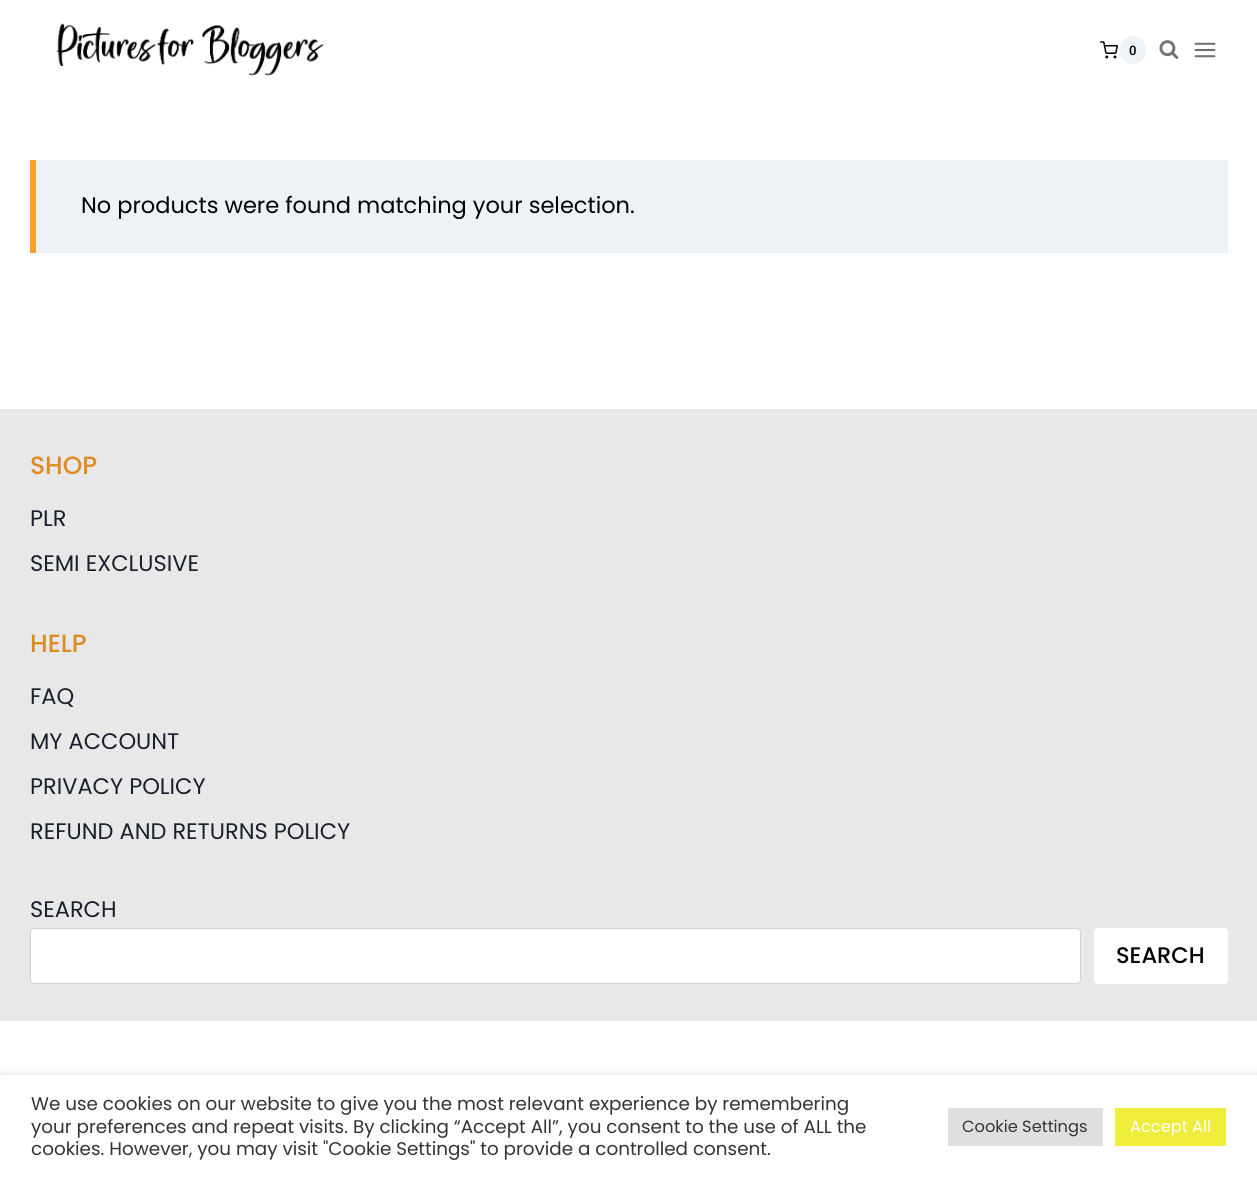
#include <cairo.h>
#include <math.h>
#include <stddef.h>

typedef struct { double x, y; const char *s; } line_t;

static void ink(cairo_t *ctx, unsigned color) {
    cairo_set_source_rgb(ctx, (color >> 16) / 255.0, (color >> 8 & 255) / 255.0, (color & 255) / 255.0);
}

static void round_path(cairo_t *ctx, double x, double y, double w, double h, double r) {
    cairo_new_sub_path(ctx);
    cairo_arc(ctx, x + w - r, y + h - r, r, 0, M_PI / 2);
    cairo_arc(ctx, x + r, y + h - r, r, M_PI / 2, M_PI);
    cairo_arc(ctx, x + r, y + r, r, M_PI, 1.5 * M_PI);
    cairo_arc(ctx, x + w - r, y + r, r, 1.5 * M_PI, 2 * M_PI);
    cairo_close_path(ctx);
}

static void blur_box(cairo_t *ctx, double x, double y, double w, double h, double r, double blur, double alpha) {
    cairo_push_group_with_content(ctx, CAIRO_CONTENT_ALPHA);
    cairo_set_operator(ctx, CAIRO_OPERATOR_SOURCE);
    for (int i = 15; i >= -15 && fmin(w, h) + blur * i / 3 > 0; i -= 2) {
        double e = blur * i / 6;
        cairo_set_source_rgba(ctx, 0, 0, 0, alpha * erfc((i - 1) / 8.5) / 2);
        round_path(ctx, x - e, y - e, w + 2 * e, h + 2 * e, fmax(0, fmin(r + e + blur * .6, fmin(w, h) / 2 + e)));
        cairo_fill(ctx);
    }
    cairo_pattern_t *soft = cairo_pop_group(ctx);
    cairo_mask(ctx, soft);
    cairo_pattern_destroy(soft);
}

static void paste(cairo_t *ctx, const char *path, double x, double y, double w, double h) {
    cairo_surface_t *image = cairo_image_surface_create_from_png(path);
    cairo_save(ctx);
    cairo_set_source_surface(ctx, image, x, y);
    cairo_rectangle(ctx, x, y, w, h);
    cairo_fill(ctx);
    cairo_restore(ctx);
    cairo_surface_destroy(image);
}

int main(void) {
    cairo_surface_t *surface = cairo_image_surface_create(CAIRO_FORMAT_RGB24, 1257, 1177);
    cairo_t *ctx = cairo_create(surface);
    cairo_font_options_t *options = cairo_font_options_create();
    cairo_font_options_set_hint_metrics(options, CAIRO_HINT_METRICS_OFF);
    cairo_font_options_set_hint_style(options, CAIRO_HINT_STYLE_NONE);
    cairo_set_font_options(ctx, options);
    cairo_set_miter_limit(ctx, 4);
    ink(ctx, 0xFFFFFF);
    cairo_paint(ctx);
    paste(ctx, "media/1.png", 56, 23, 268, 53);
    paste(ctx, "media/2.png", 1100, 41, 18, 18);
    ink(ctx, 0xEDF2F7);
    round_path(ctx, 1120, 36, 26, 28, 13);
    cairo_fill(ctx);
    cairo_select_font_face(ctx, "Roboto Slab Medium", CAIRO_FONT_SLANT_NORMAL, CAIRO_FONT_WEIGHT_NORMAL);
    cairo_set_font_size(ctx, 13);
    ink(ctx, 0x000000);
    cairo_move_to(ctx, 1129, 55);
    cairo_show_text(ctx, "0");
    paste(ctx, "media/3.png", 1159, 40, 20, 19);
    paste(ctx, "media/4.png", 1194, 42, 22, 16);
    ink(ctx, 0xEDF2F7);
    cairo_rectangle(ctx, 36, 160, 1192, 93);
    cairo_fill(ctx);
    ink(ctx, 0xF8A22D);
    cairo_rectangle(ctx, 30, 160, 6, 93);
    cairo_fill(ctx);
    cairo_select_font_face(ctx, "Poppins", CAIRO_FONT_SLANT_NORMAL, CAIRO_FONT_WEIGHT_NORMAL);
    cairo_set_font_size(ctx, 22.5);
    ink(ctx, 0x000000);
    cairo_move_to(ctx, 81, 213);
    cairo_show_text(ctx, "No products were found matching your selection.");
    ink(ctx, 0xE8E8E8);
    cairo_rectangle(ctx, 0, 409, 1257, 612);
    cairo_fill(ctx);
    cairo_select_font_face(ctx, "Poppins Medium", CAIRO_FONT_SLANT_NORMAL, CAIRO_FONT_WEIGHT_NORMAL);
    cairo_set_font_size(ctx, 25);
    ink(ctx, 0xDE8C21);
    cairo_move_to(ctx, 30, 474);
    cairo_show_text(ctx, "SHOP");
    cairo_select_font_face(ctx, "Poppins", CAIRO_FONT_SLANT_NORMAL, CAIRO_FONT_WEIGHT_NORMAL);
    cairo_set_font_size(ctx, 22.5);
    ink(ctx, 0x1A202C);
    cairo_move_to(ctx, 30, 526);
    cairo_show_text(ctx, "PLR");
    cairo_move_to(ctx, 30, 571);
    cairo_show_text(ctx, "SEMI EXCLUSIVE");
    cairo_select_font_face(ctx, "Poppins Medium", CAIRO_FONT_SLANT_NORMAL, CAIRO_FONT_WEIGHT_NORMAL);
    cairo_set_font_size(ctx, 25);
    ink(ctx, 0xDE8C21);
    cairo_move_to(ctx, 30, 652);
    cairo_show_text(ctx, "HELP");
    cairo_select_font_face(ctx, "Poppins", CAIRO_FONT_SLANT_NORMAL, CAIRO_FONT_WEIGHT_NORMAL);
    cairo_set_font_size(ctx, 22.5);
    ink(ctx, 0x1A202C);
    {
        static const line_t items[] = {
            {30, 704, "FAQ"},
            {30, 749, "MY ACCOUNT"},
            {30, 794, "PRIVACY POLICY"},
            {30, 839, "REFUND AND RETURNS POLICY"},
            {30, 917, "SEARCH"},
        };
        for (size_t i = 0; i < sizeof items / sizeof *items; i++) {
            cairo_move_to(ctx, items[i].x, items[i].y);
            cairo_show_text(ctx, items[i].s);
        }
    }
    ink(ctx, 0xFFFFFF);
    round_path(ctx, 30.5, 928.5, 1050, 55, 3.5);
    cairo_fill_preserve(ctx);
    ink(ctx, 0xCBD5E0);
    cairo_set_line_width(ctx, 1);
    cairo_stroke(ctx);
    ink(ctx, 0xFFFFFF);
    round_path(ctx, 1094, 928, 134, 56, 4);
    cairo_fill(ctx);
    cairo_select_font_face(ctx, "Poppins Medium", CAIRO_FONT_SLANT_NORMAL, CAIRO_FONT_WEIGHT_NORMAL);
    ink(ctx, 0x000000);
    cairo_move_to(ctx, 1116, 963);
    cairo_show_text(ctx, "SEARCH");
    ink(ctx, 0xACABAB);
    blur_box(ctx, 0, 1074, 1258, 102, 0, 6, 0.3);
    ink(ctx, 0xFFFFFF);
    cairo_rectangle(ctx, 0, 1075, 1257, 102);
    cairo_fill(ctx);
    cairo_select_font_face(ctx, "Poppins", CAIRO_FONT_SLANT_NORMAL, CAIRO_FONT_WEIGHT_NORMAL);
    cairo_set_font_size(ctx, 18.35);
    ink(ctx, 0x333333);
    {
        static const line_t items[] = {
            {31, 1110, "We use cookies on our website to give you the most relevant experience by remembering"},
            {31, 1133, "your preferences and repeat visits. By clicking “Accept All”, you consent to the use of ALL the"},
            {31, 1155, "cookies. However, you may visit \"Cookie Settings\" to provide a controlled consent."},
        };
        for (size_t i = 0; i < sizeof items / sizeof *items; i++) {
            cairo_move_to(ctx, items[i].x, items[i].y);
            cairo_show_text(ctx, items[i].s);
        }
    }
    ink(ctx, 0xDEDFE0);
    cairo_rectangle(ctx, 948, 1108, 155, 38);
    cairo_fill(ctx);
    cairo_set_font_size(ctx, 16.25);
    ink(ctx, 0x333333);
    cairo_move_to(ctx, 962, 1132);
    cairo_show_text(ctx, "Cookie Settings");
    ink(ctx, 0xEFEC3B);
    cairo_rectangle(ctx, 1115, 1108, 111, 38);
    cairo_fill(ctx);
    ink(ctx, 0xFFFFFF);
    cairo_move_to(ctx, 1130, 1132);
    cairo_show_text(ctx, "Accept All");
    cairo_surface_write_to_png(surface, "image.png");
    cairo_font_options_destroy(options);
    cairo_destroy(ctx);
    cairo_surface_destroy(surface);
    return 0;
}
